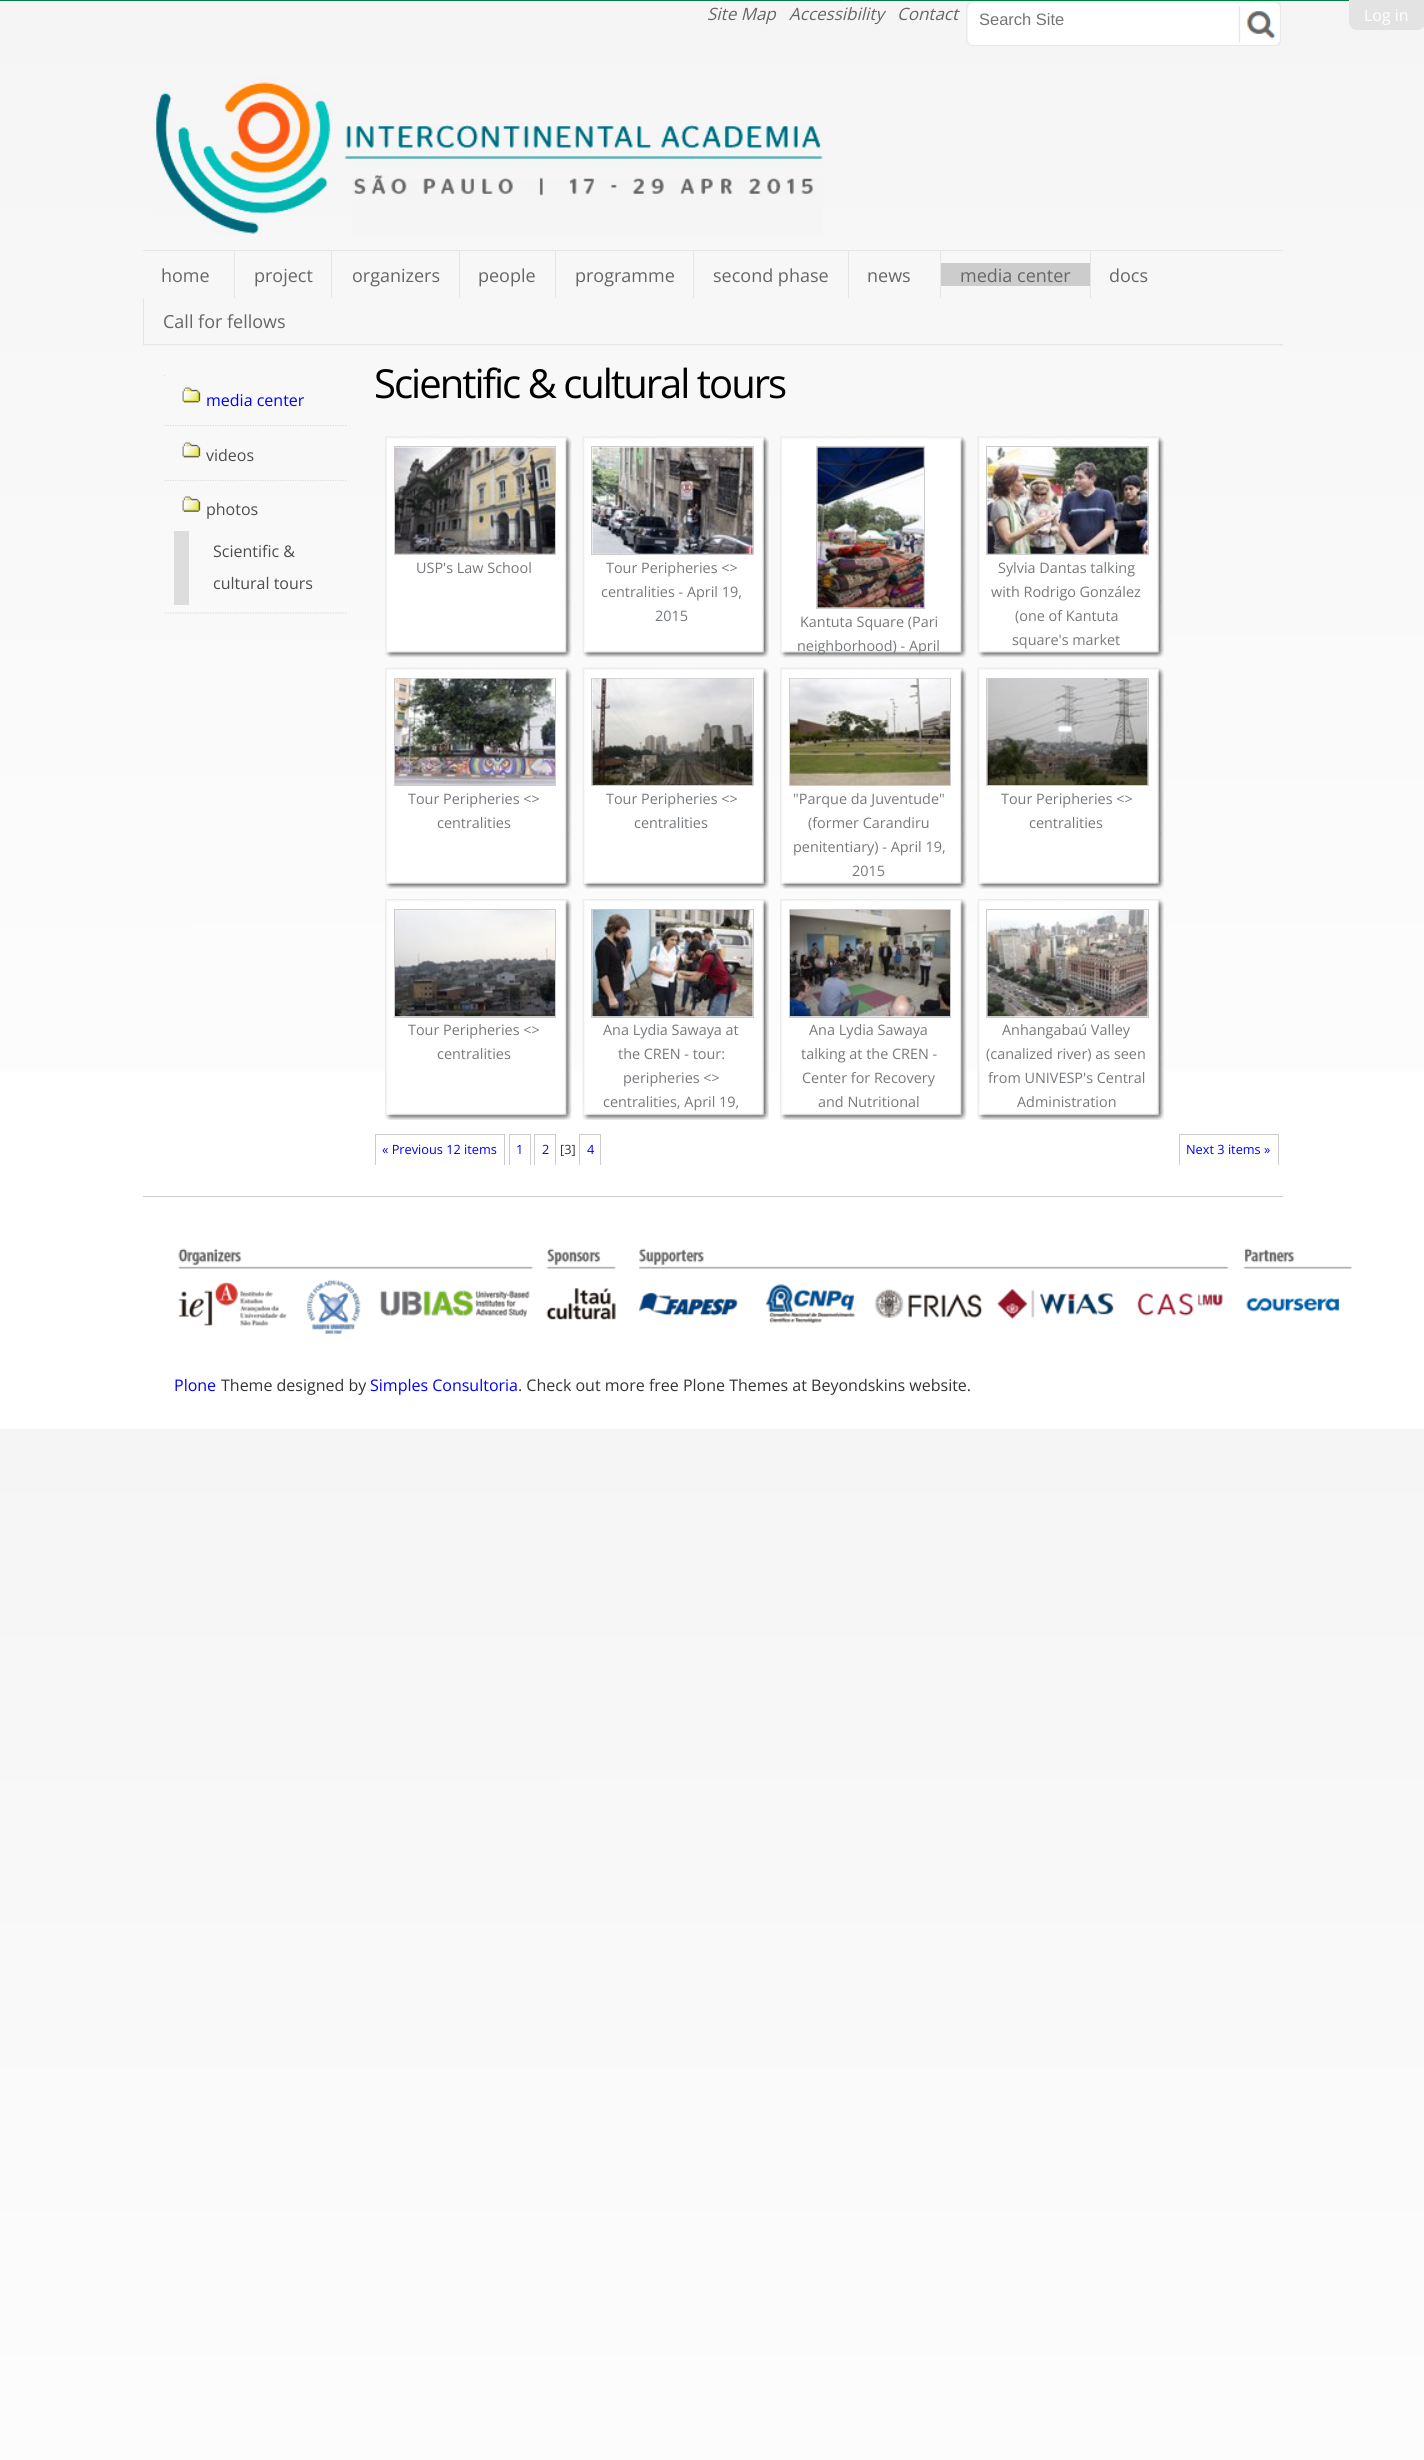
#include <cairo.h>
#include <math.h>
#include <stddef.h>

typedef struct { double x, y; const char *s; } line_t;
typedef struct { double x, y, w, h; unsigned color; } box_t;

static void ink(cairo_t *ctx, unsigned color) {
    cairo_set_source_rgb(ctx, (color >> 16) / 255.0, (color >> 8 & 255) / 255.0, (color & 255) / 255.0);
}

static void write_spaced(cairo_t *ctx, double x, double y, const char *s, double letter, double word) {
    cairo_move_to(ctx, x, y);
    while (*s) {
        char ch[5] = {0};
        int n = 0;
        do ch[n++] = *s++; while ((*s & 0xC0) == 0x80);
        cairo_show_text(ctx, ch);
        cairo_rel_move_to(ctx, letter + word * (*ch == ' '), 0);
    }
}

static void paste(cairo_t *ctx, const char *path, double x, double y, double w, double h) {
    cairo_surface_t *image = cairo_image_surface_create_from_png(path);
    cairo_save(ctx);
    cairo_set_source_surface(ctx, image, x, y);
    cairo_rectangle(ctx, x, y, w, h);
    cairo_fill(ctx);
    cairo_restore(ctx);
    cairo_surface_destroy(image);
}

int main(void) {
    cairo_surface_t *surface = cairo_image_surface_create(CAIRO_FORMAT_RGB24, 1424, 2460);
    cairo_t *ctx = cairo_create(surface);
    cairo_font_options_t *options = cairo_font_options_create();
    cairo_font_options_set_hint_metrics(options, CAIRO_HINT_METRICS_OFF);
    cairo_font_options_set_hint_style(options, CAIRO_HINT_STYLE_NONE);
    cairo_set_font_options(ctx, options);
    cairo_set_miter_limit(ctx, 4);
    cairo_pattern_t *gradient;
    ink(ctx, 0xFFFFFF);
    cairo_paint(ctx);
    gradient = cairo_pattern_create_linear(712, 0, 713, 1429);
    cairo_pattern_add_color_stop_rgba(gradient, 0, 0.961, 0.961, 0.961, 1);
    cairo_pattern_add_color_stop_rgba(gradient, 1, 1, 1, 1, 1);
    cairo_set_source(ctx, gradient);
    cairo_pattern_destroy(gradient);
    cairo_rectangle(ctx, 0, 1, 1424, 1071);
    cairo_fill(ctx);
    gradient = cairo_pattern_create_linear(712, 1429, 713, 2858);
    cairo_pattern_add_color_stop_rgba(gradient, 0, 0.961, 0.961, 0.961, 1);
    cairo_pattern_add_color_stop_rgba(gradient, 1, 1, 1, 1, 1);
    cairo_set_source(ctx, gradient);
    cairo_pattern_destroy(gradient);
    cairo_rectangle(ctx, 0, 1429, 1424, 1031);
    cairo_fill(ctx);
    ink(ctx, 0x008044);
    cairo_rectangle(ctx, 0, 0, 1349, 1);
    cairo_fill(ctx);
    ink(ctx, 0xF1F1F1);
    cairo_rectangle(ctx, 143, 345, 1140, 1);
    cairo_fill(ctx);
    cairo_select_font_face(ctx, "Open Sans", CAIRO_FONT_SLANT_ITALIC, CAIRO_FONT_WEIGHT_NORMAL);
    cairo_set_font_size(ctx, 17);
    ink(ctx, 0x666666);
    {
        static const line_t items[] = {
            {707, 20, "Site Map"},
            {789, 20, "Accessibility"},
            {897, 20, "Contact"},
        };
        for (size_t i = 0; i < sizeof items / sizeof *items; i++) {
            cairo_move_to(ctx, items[i].x, items[i].y);
            cairo_show_text(ctx, items[i].s);
        }
    }
    paste(ctx, "media/1.png", 966, 1, 315, 45);
    cairo_select_font_face(ctx, "Liberation Sans", CAIRO_FONT_SLANT_NORMAL, CAIRO_FONT_WEIGHT_NORMAL);
    cairo_set_font_size(ctx, 16.5);
    ink(ctx, 0x757575);
    cairo_move_to(ctx, 979, 25);
    cairo_show_text(ctx, "Search Site");
    paste(ctx, "media/2.png", 152, 75, 671, 160);
    ink(ctx, 0xE6E6E6);
    cairo_rectangle(ctx, 143, 250, 1140, 1);
    cairo_fill(ctx);
    cairo_rectangle(ctx, 143, 344, 1140, 1);
    cairo_fill(ctx);
    cairo_select_font_face(ctx, "Open Sans", CAIRO_FONT_SLANT_NORMAL, CAIRO_FONT_WEIGHT_NORMAL);
    cairo_set_font_size(ctx, 18);
    ink(ctx, 0x666666);
    cairo_move_to(ctx, 161, 282);
    cairo_show_text(ctx, "home");
    ink(ctx, 0xE6E6E6);
    cairo_rectangle(ctx, 234, 251, 1, 47);
    cairo_fill(ctx);
    ink(ctx, 0x666666);
    cairo_move_to(ctx, 254, 282);
    cairo_show_text(ctx, "project");
    ink(ctx, 0xE6E6E6);
    cairo_rectangle(ctx, 331, 251, 1, 47);
    cairo_fill(ctx);
    ink(ctx, 0x666666);
    cairo_move_to(ctx, 352, 282);
    cairo_show_text(ctx, "organizers");
    ink(ctx, 0xE6E6E6);
    cairo_rectangle(ctx, 459, 251, 1, 47);
    cairo_fill(ctx);
    ink(ctx, 0x666666);
    cairo_move_to(ctx, 478, 282);
    cairo_show_text(ctx, "people");
    ink(ctx, 0xE6E6E6);
    cairo_rectangle(ctx, 555, 251, 1, 47);
    cairo_fill(ctx);
    ink(ctx, 0x666666);
    cairo_move_to(ctx, 575, 282);
    cairo_show_text(ctx, "programme");
    ink(ctx, 0xE6E6E6);
    cairo_rectangle(ctx, 693, 251, 1, 47);
    cairo_fill(ctx);
    ink(ctx, 0x666666);
    cairo_move_to(ctx, 713, 282);
    cairo_show_text(ctx, "second phase");
    ink(ctx, 0xE6E6E6);
    cairo_rectangle(ctx, 848, 251, 1, 47);
    cairo_fill(ctx);
    ink(ctx, 0x666666);
    cairo_move_to(ctx, 867, 282);
    cairo_show_text(ctx, "news");
    ink(ctx, 0xCCCCCC);
    cairo_rectangle(ctx, 941, 263, 149, 23);
    cairo_fill(ctx);
    ink(ctx, 0xE6E6E6);
    cairo_rectangle(ctx, 940, 251, 1, 47);
    cairo_fill(ctx);
    ink(ctx, 0x666666);
    cairo_move_to(ctx, 960, 282);
    cairo_show_text(ctx, "media center");
    ink(ctx, 0xE6E6E6);
    cairo_rectangle(ctx, 1090, 251, 1, 47);
    cairo_fill(ctx);
    ink(ctx, 0x666666);
    cairo_move_to(ctx, 1109, 282);
    cairo_show_text(ctx, "docs");
    ink(ctx, 0xE6E6E6);
    cairo_rectangle(ctx, 143, 298, 1, 46);
    cairo_fill(ctx);
    ink(ctx, 0x666666);
    cairo_move_to(ctx, 163, 328);
    cairo_show_text(ctx, "Call for fellows");
    ink(ctx, 0xD9D9D9);
    cairo_rectangle(ctx, 164, 375, 1, 1);
    cairo_fill(ctx);
    cairo_new_path(ctx);
    cairo_move_to(ctx, 165, 425.5);
    cairo_line_to(ctx, 347.5, 425.5);
    ink(ctx, 0xDDDDDD);
    cairo_set_line_width(ctx, 1.2);
    cairo_set_dash(ctx, (double[]){1.25, 1.25}, 2, 0);
    cairo_stroke(ctx);
    paste(ctx, "media/3.png", 182, 387, 19, 16);
    cairo_set_font_size(ctx, 16);
    ink(ctx, 0x0000FF);
    cairo_move_to(ctx, 206, 406);
    cairo_show_text(ctx, "media center");
    cairo_new_path(ctx);
    cairo_move_to(ctx, 165, 480.5);
    cairo_line_to(ctx, 347.5, 480.5);
    ink(ctx, 0xDDDDDD);
    cairo_stroke(ctx);
    paste(ctx, "media/3.png", 182, 442, 19, 16);
    ink(ctx, 0x4D4D4D);
    cairo_move_to(ctx, 206, 461);
    cairo_show_text(ctx, "videos");
    cairo_new_path(ctx);
    cairo_move_to(ctx, 165, 613);
    cairo_line_to(ctx, 347.5, 613);
    ink(ctx, 0xDDDDDD);
    cairo_stroke(ctx);
    paste(ctx, "media/4.png", 182, 496, 19, 16);
    ink(ctx, 0x4D4D4D);
    cairo_move_to(ctx, 206, 515);
    cairo_show_text(ctx, "photos");
    ink(ctx, 0xDDDDDD);
    cairo_rectangle(ctx, 174, 531, 15, 74);
    cairo_fill(ctx);
    ink(ctx, 0x4D4D4D);
    cairo_move_to(ctx, 213, 557);
    cairo_show_text(ctx, "Scientific &");
    cairo_move_to(ctx, 213, 589);
    cairo_show_text(ctx, "cultural tours");
    cairo_set_font_size(ctx, 40);
    ink(ctx, 0x000000);
    write_spaced(ctx, 374, 398, "Scientific & cultural tours", -2, 0);
    paste(ctx, "media/5.png", 385, 436, 187, 222);
    cairo_rectangle(ctx, 394.5, 446.5, 161, 108);
    ink(ctx, 0xCCCCCC);
    cairo_set_line_width(ctx, 1);
    cairo_set_dash(ctx, NULL, 0, 0);
    cairo_stroke(ctx);
    paste(ctx, "media/6.png", 395, 447, 160, 107);
    cairo_set_font_size(ctx, 14.4);
    ink(ctx, 0x76797C);
    cairo_move_to(ctx, 416, 573);
    cairo_show_text(ctx, "USP's Law School");
    paste(ctx, "media/7.png", 582, 436, 187, 222);
    cairo_rectangle(ctx, 591.5, 446.5, 162, 108);
    ink(ctx, 0xCCCCCC);
    cairo_stroke(ctx);
    paste(ctx, "media/8.png", 592, 447, 161, 107);
    ink(ctx, 0x76797C);
    {
        static const line_t items[] = {
            {606, 573, "Tour Peripheries <>"},
            {601, 597, "centralities - April 19,"},
            {655, 621, "2015"},
        };
        for (size_t i = 0; i < sizeof items / sizeof *items; i++) {
            cairo_move_to(ctx, items[i].x, items[i].y);
            cairo_show_text(ctx, items[i].s);
        }
    }
    paste(ctx, "media/5.png", 780, 436, 187, 222);
    cairo_rectangle(ctx, 816.5, 446.5, 108, 162);
    ink(ctx, 0xCCCCCC);
    cairo_stroke(ctx);
    paste(ctx, "media/9.png", 817, 447, 107, 161);
    ink(ctx, 0x76797C);
    cairo_move_to(ctx, 800, 627);
    cairo_show_text(ctx, "Kantuta Square (Pari");
    cairo_move_to(ctx, 797, 651);
    cairo_show_text(ctx, "neighborhood) - April");
    paste(ctx, "media/10.png", 977, 436, 187, 222);
    cairo_rectangle(ctx, 986.5, 446.5, 162, 108);
    ink(ctx, 0xCCCCCC);
    cairo_stroke(ctx);
    paste(ctx, "media/11.png", 987, 447, 161, 107);
    ink(ctx, 0x76797C);
    {
        static const line_t items[] = {
            {998, 573, "Sylvia Dantas talking"},
            {991, 597, "with Rodrigo González"},
            {1015, 621, "(one of Kantuta"},
            {1012, 645, "square's market"},
        };
        for (size_t i = 0; i < sizeof items / sizeof *items; i++) {
            cairo_move_to(ctx, items[i].x, items[i].y);
            cairo_show_text(ctx, items[i].s);
        }
    }
    paste(ctx, "media/12.png", 385, 667, 187, 222);
    cairo_rectangle(ctx, 394.5, 678.5, 161, 107);
    ink(ctx, 0xCCCCCC);
    cairo_stroke(ctx);
    paste(ctx, "media/13.png", 395, 678, 160, 107);
    ink(ctx, 0x76797C);
    cairo_move_to(ctx, 408, 804);
    cairo_show_text(ctx, "Tour Peripheries <>");
    cairo_move_to(ctx, 437, 828);
    cairo_show_text(ctx, "centralities");
    paste(ctx, "media/14.png", 582, 667, 187, 222);
    cairo_rectangle(ctx, 591.5, 678.5, 162, 107);
    ink(ctx, 0xCCCCCC);
    cairo_stroke(ctx);
    paste(ctx, "media/15.png", 592, 678, 161, 107);
    ink(ctx, 0x76797C);
    cairo_move_to(ctx, 606, 804);
    cairo_show_text(ctx, "Tour Peripheries <>");
    cairo_move_to(ctx, 634, 828);
    cairo_show_text(ctx, "centralities");
    paste(ctx, "media/12.png", 780, 667, 187, 222);
    cairo_rectangle(ctx, 789.5, 678.5, 161, 107);
    ink(ctx, 0xCCCCCC);
    cairo_stroke(ctx);
    paste(ctx, "media/16.png", 790, 678, 160, 107);
    ink(ctx, 0x76797C);
    {
        static const line_t items[] = {
            {793, 804, "\"Parque da Juventude\""},
            {808, 828, "(former Carandiru"},
            {793, 852, "penitentiary) - April 19,"},
            {852, 876, "2015"},
        };
        for (size_t i = 0; i < sizeof items / sizeof *items; i++) {
            cairo_move_to(ctx, items[i].x, items[i].y);
            cairo_show_text(ctx, items[i].s);
        }
    }
    paste(ctx, "media/17.png", 977, 667, 187, 222);
    cairo_rectangle(ctx, 986.5, 678.5, 162, 107);
    ink(ctx, 0xCCCCCC);
    cairo_stroke(ctx);
    paste(ctx, "media/18.png", 987, 678, 161, 107);
    ink(ctx, 0x76797C);
    cairo_move_to(ctx, 1001, 804);
    cairo_show_text(ctx, "Tour Peripheries <>");
    cairo_move_to(ctx, 1029, 828);
    cairo_show_text(ctx, "centralities");
    paste(ctx, "media/19.png", 385, 899, 187, 221);
    cairo_rectangle(ctx, 394.5, 909.5, 161, 108);
    ink(ctx, 0xCCCCCC);
    cairo_stroke(ctx);
    paste(ctx, "media/20.png", 395, 910, 160, 107);
    ink(ctx, 0x76797C);
    cairo_move_to(ctx, 408, 1035);
    cairo_show_text(ctx, "Tour Peripheries <>");
    cairo_move_to(ctx, 437, 1059);
    cairo_show_text(ctx, "centralities");
    paste(ctx, "media/21.png", 582, 899, 187, 221);
    cairo_rectangle(ctx, 591.5, 909.5, 162, 108);
    ink(ctx, 0xCCCCCC);
    cairo_stroke(ctx);
    paste(ctx, "media/22.png", 592, 910, 161, 107);
    ink(ctx, 0x76797C);
    {
        static const line_t items[] = {
            {603, 1035, "Ana Lydia Sawaya at"},
            {618, 1059, "the CREN - tour:"},
            {623, 1083, "peripheries <>"},
            {603, 1107, "centralities, April 19,"},
        };
        for (size_t i = 0; i < sizeof items / sizeof *items; i++) {
            cairo_move_to(ctx, items[i].x, items[i].y);
            cairo_show_text(ctx, items[i].s);
        }
    }
    paste(ctx, "media/19.png", 780, 899, 187, 221);
    cairo_rectangle(ctx, 789.5, 909.5, 161, 108);
    ink(ctx, 0xCCCCCC);
    cairo_stroke(ctx);
    paste(ctx, "media/23.png", 790, 910, 160, 107);
    ink(ctx, 0x76797C);
    {
        static const line_t items[] = {
            {809, 1035, "Ana Lydia Sawaya"},
            {801, 1059, "talking at the CREN -"},
            {802, 1083, "Center for Recovery"},
            {818, 1107, "and Nutritional"},
        };
        for (size_t i = 0; i < sizeof items / sizeof *items; i++) {
            cairo_move_to(ctx, items[i].x, items[i].y);
            cairo_show_text(ctx, items[i].s);
        }
    }
    paste(ctx, "media/24.png", 977, 899, 187, 221);
    cairo_rectangle(ctx, 986.5, 909.5, 162, 108);
    ink(ctx, 0xCCCCCC);
    cairo_stroke(ctx);
    paste(ctx, "media/25.png", 987, 910, 161, 107);
    ink(ctx, 0x76797C);
    {
        static const line_t items[] = {
            {1002, 1035, "Anhangabaú Valley"},
            {986, 1059, "(canalized river) as seen"},
            {988, 1083, "from UNIVESP's Central"},
            {1017, 1107, "Administration"},
        };
        for (size_t i = 0; i < sizeof items / sizeof *items; i++) {
            cairo_move_to(ctx, items[i].x, items[i].y);
            cairo_show_text(ctx, items[i].s);
        }
    }
    {
        static const box_t items[] = {
            {375, 1134, 130, 1, 0xCCCCCC},
            {504, 1134, 1, 31, 0xCCCCCC},
            {375, 1134, 1, 31, 0xCCCCCC},
        };
        for (size_t i = 0; i < sizeof items / sizeof *items; i++) {
            ink(ctx, items[i].color);
            cairo_rectangle(ctx, items[i].x, items[i].y, items[i].w, items[i].h);
            cairo_fill(ctx);
        }
    }
    cairo_set_font_size(ctx, 12.75);
    ink(ctx, 0x0000FF);
    cairo_move_to(ctx, 382, 1154);
    cairo_show_text(ctx, "« Previous 12 items");
    {
        static const box_t items[] = {
            {509, 1134, 22, 1, 0xCCCCCC},
            {530, 1134, 1, 31, 0xCCCCCC},
            {509, 1134, 1, 31, 0xCCCCCC},
        };
        for (size_t i = 0; i < sizeof items / sizeof *items; i++) {
            ink(ctx, items[i].color);
            cairo_rectangle(ctx, items[i].x, items[i].y, items[i].w, items[i].h);
            cairo_fill(ctx);
        }
    }
    ink(ctx, 0x0000FF);
    cairo_move_to(ctx, 516, 1154);
    cairo_show_text(ctx, "1");
    {
        static const box_t items[] = {
            {534, 1134, 22, 1, 0xCCCCCC},
            {555, 1134, 1, 31, 0xCCCCCC},
            {534, 1134, 1, 31, 0xCCCCCC},
        };
        for (size_t i = 0; i < sizeof items / sizeof *items; i++) {
            ink(ctx, items[i].color);
            cairo_rectangle(ctx, items[i].x, items[i].y, items[i].w, items[i].h);
            cairo_fill(ctx);
        }
    }
    ink(ctx, 0x0000FF);
    cairo_move_to(ctx, 542, 1154);
    cairo_show_text(ctx, "2");
    ink(ctx, 0x333333);
    cairo_move_to(ctx, 560, 1154);
    cairo_show_text(ctx, "[3]");
    {
        static const box_t items[] = {
            {579, 1134, 22, 1, 0xCCCCCC},
            {600, 1134, 1, 31, 0xCCCCCC},
            {579, 1134, 1, 31, 0xCCCCCC},
        };
        for (size_t i = 0; i < sizeof items / sizeof *items; i++) {
            ink(ctx, items[i].color);
            cairo_rectangle(ctx, items[i].x, items[i].y, items[i].w, items[i].h);
            cairo_fill(ctx);
        }
    }
    ink(ctx, 0x0000FF);
    cairo_move_to(ctx, 587, 1154);
    cairo_show_text(ctx, "4");
    {
        static const box_t items[] = {
            {1179, 1134, 100, 1, 0xCCCCCC},
            {1278, 1134, 1, 31, 0xCCCCCC},
            {1179, 1134, 1, 31, 0xCCCCCC},
        };
        for (size_t i = 0; i < sizeof items / sizeof *items; i++) {
            ink(ctx, items[i].color);
            cairo_rectangle(ctx, items[i].x, items[i].y, items[i].w, items[i].h);
            cairo_fill(ctx);
        }
    }
    ink(ctx, 0x0000FF);
    cairo_move_to(ctx, 1186, 1154);
    cairo_show_text(ctx, "Next 3 items »");
    ink(ctx, 0xCCCCCC);
    cairo_rectangle(ctx, 143, 1196, 1140, 1);
    cairo_fill(ctx);
    paste(ctx, "media/26.png", 178, 1248, 1174, 86);
    cairo_set_font_size(ctx, 16);
    ink(ctx, 0x0000FF);
    cairo_move_to(ctx, 174, 1391);
    cairo_show_text(ctx, "Plone");
    ink(ctx, 0x333333);
    cairo_move_to(ctx, 221, 1391);
    cairo_show_text(ctx, "Theme designed by");
    ink(ctx, 0x0000FF);
    cairo_move_to(ctx, 370, 1391);
    cairo_show_text(ctx, "Simples Consultoria");
    ink(ctx, 0x333333);
    cairo_move_to(ctx, 518, 1391);
    cairo_show_text(ctx, ". Check out more free Plone Themes at Beyondskins website.");
    ink(ctx, 0xE3E3E3);
    cairo_new_path(ctx);
    cairo_move_to(ctx, 1349, 0);
    cairo_line_to(ctx, 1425, 0);
    cairo_line_to(ctx, 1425, 22);
    cairo_curve_to(ctx, 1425, 26.5, 1421.5, 30, 1417, 30);
    cairo_line_to(ctx, 1357, 30);
    cairo_curve_to(ctx, 1352.5, 30, 1349, 26.5, 1349, 22);
    cairo_close_path(ctx);
    cairo_fill(ctx);
    ink(ctx, 0xFFFFFF);
    cairo_move_to(ctx, 1364, 21);
    cairo_show_text(ctx, "Log in");
    cairo_surface_write_to_png(surface, "image.png");
    cairo_font_options_destroy(options);
    cairo_destroy(ctx);
    cairo_surface_destroy(surface);
    return 0;
}
